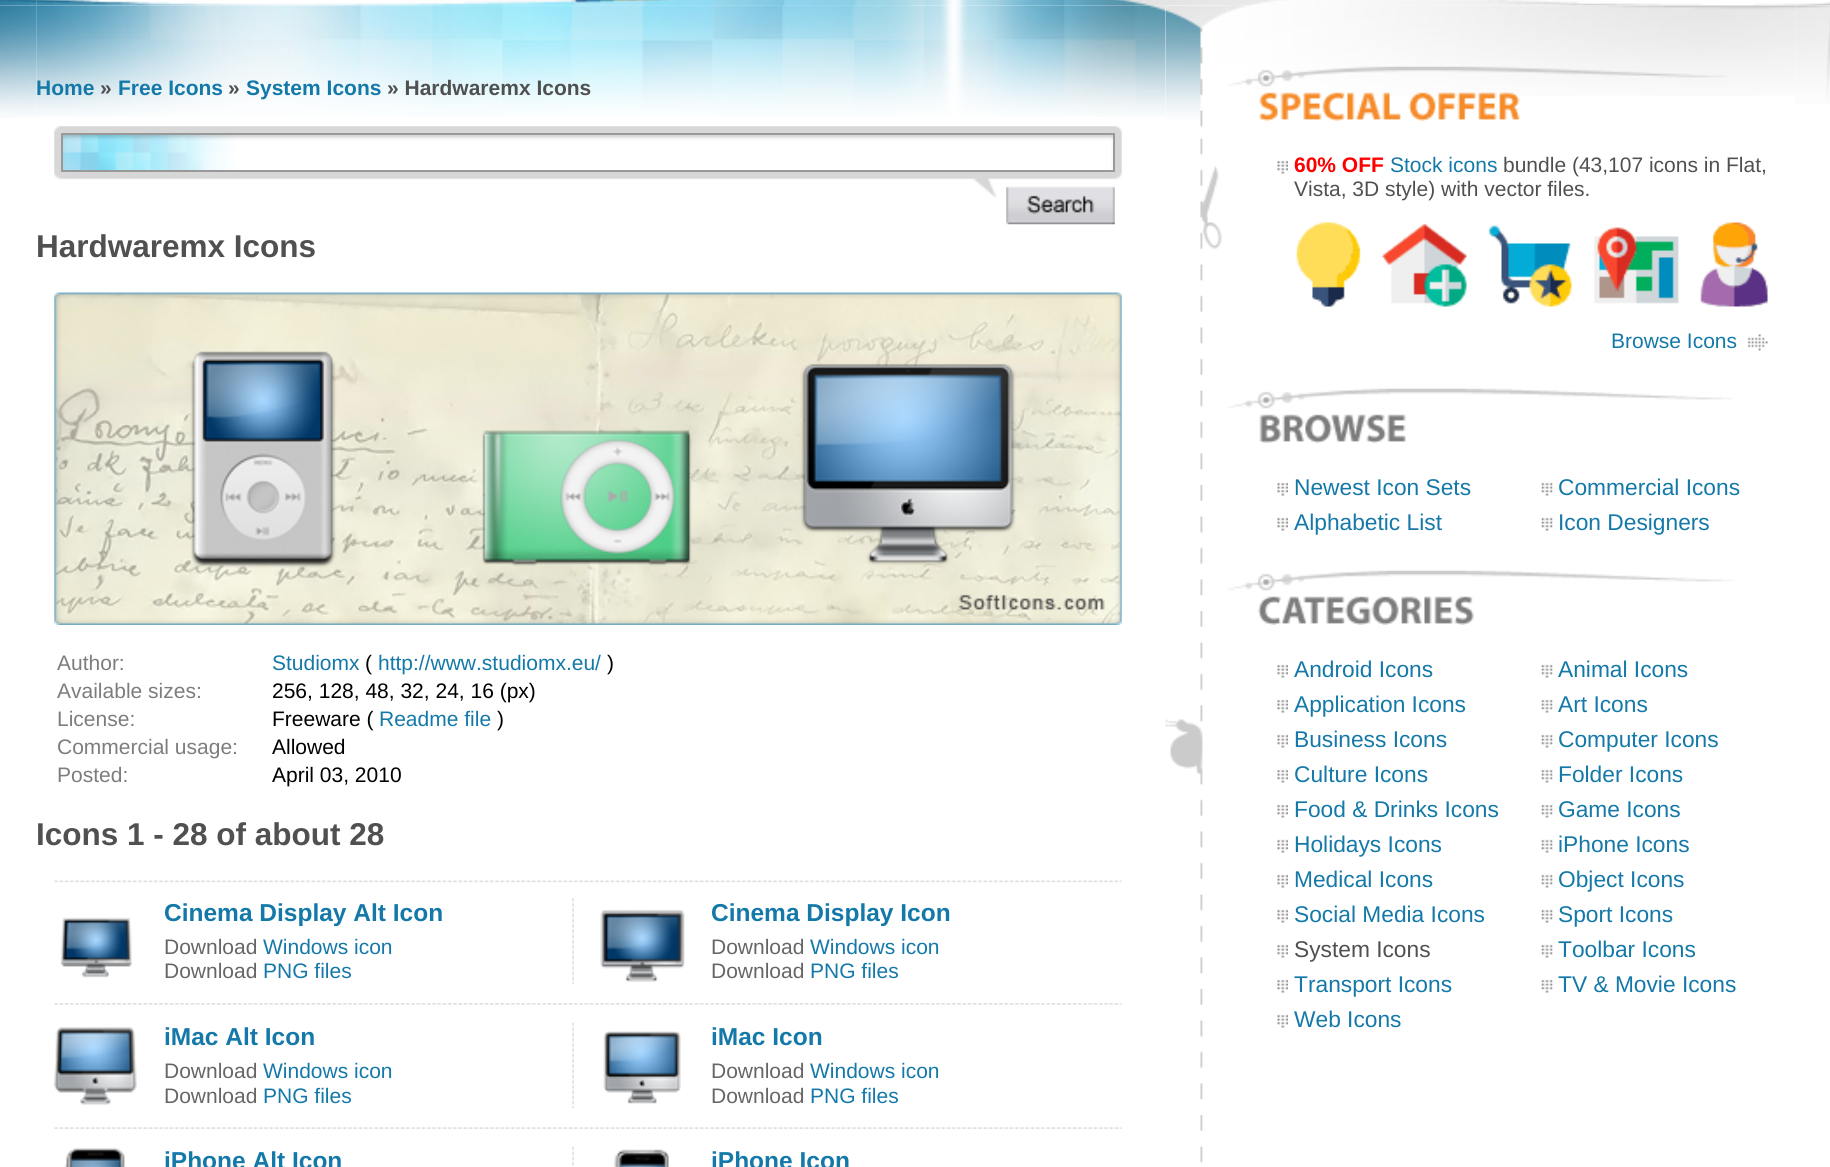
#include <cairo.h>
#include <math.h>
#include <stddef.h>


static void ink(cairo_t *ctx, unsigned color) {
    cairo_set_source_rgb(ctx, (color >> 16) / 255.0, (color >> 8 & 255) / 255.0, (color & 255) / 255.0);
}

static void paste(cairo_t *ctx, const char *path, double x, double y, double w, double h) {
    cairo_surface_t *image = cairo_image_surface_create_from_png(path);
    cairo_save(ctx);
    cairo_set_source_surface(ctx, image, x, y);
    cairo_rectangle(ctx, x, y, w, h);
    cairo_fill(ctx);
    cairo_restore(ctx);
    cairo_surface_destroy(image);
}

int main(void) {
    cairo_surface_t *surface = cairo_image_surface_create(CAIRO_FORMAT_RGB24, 1830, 1167);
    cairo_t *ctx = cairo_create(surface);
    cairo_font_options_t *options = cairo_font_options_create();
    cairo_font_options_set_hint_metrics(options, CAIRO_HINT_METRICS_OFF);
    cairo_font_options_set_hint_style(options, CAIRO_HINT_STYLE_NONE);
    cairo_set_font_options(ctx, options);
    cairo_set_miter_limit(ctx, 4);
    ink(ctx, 0xFFFFFF);
    cairo_paint(ctx);
    paste(ctx, "media/1.png", 0, 0, 37, 6);
    paste(ctx, "media/2.png", 36, 0, 1760, 6);
    paste(ctx, "media/7.png", 0, 5, 37, 113);
    paste(ctx, "media/11.png", 36, 5, 1130, 112);
    paste(ctx, "media/3.png", 416, 2, 109, 4);
    paste(ctx, "media/4.png", 525, 0, 191, 6);
    paste(ctx, "media/5.png", 716, 0, 196, 6);
    paste(ctx, "media/6.png", 1795, 1, 35, 5);
    paste(ctx, "media/8.png", 1165, 5, 61, 1158);
    paste(ctx, "media/9.png", 1165, 5, 62, 122);
    paste(ctx, "media/34.png", 1227, 5, 569, 91);
    paste(ctx, "media/10.png", 1795, 5, 35, 99);
    cairo_select_font_face(ctx, "Liberation Sans", CAIRO_FONT_SLANT_NORMAL, CAIRO_FONT_WEIGHT_BOLD);
    cairo_set_font_size(ctx, 21);
    ink(ctx, 0x1479A8);
    cairo_move_to(ctx, 36, 95);
    cairo_show_text(ctx, "Home");
    ink(ctx, 0x505050);
    cairo_move_to(ctx, 100, 95);
    cairo_show_text(ctx, "»");
    ink(ctx, 0x1479A8);
    cairo_move_to(ctx, 118, 95);
    cairo_show_text(ctx, "Free Icons");
    ink(ctx, 0x505050);
    cairo_move_to(ctx, 228, 95);
    cairo_show_text(ctx, "»");
    ink(ctx, 0x1479A8);
    cairo_move_to(ctx, 246, 95);
    cairo_show_text(ctx, "System Icons");
    ink(ctx, 0x505050);
    cairo_move_to(ctx, 387, 95);
    cairo_show_text(ctx, "» Hardwaremx Icons");
    paste(ctx, "media/12.png", 54, 126, 1068, 72);
    paste(ctx, "media/13.png", 63, 135, 1050, 35);
    cairo_rectangle(ctx, 62, 134, 1052, 37);
    ink(ctx, 0x999999);
    cairo_stroke(ctx);
    paste(ctx, "media/14.png", 1006, 186, 109, 39);
    cairo_set_font_size(ctx, 31.5);
    ink(ctx, 0x505050);
    cairo_move_to(ctx, 36, 257);
    cairo_show_text(ctx, "Hardwaremx Icons");
    paste(ctx, "media/15.png", 54, 292, 1068, 333);
    cairo_select_font_face(ctx, "Liberation Sans", CAIRO_FONT_SLANT_NORMAL, CAIRO_FONT_WEIGHT_NORMAL);
    cairo_set_font_size(ctx, 21);
    ink(ctx, 0x7D7D7D);
    cairo_move_to(ctx, 57, 670);
    cairo_show_text(ctx, "Author:");
    ink(ctx, 0x1479A8);
    cairo_move_to(ctx, 272, 670);
    cairo_show_text(ctx, "Studiomx");
    ink(ctx, 0x000000);
    cairo_move_to(ctx, 365, 670);
    cairo_show_text(ctx, "(");
    ink(ctx, 0x1479A8);
    cairo_move_to(ctx, 378, 670);
    cairo_show_text(ctx, "http://www.studiomx.eu/");
    ink(ctx, 0x000000);
    cairo_move_to(ctx, 607, 670);
    cairo_show_text(ctx, ")");
    ink(ctx, 0x7D7D7D);
    cairo_move_to(ctx, 57, 698);
    cairo_show_text(ctx, "Available sizes:");
    ink(ctx, 0x000000);
    cairo_move_to(ctx, 272, 698);
    cairo_show_text(ctx, "256, 128, 48, 32, 24, 16 (px)");
    ink(ctx, 0x7D7D7D);
    cairo_move_to(ctx, 57, 726);
    cairo_show_text(ctx, "License:");
    ink(ctx, 0x000000);
    cairo_move_to(ctx, 272, 726);
    cairo_show_text(ctx, "Freeware (");
    ink(ctx, 0x1479A8);
    cairo_move_to(ctx, 379, 726);
    cairo_show_text(ctx, "Readme file");
    ink(ctx, 0x000000);
    cairo_move_to(ctx, 497, 726);
    cairo_show_text(ctx, ")");
    ink(ctx, 0x7D7D7D);
    cairo_move_to(ctx, 57, 754);
    cairo_show_text(ctx, "Commercial usage:");
    ink(ctx, 0x000000);
    cairo_move_to(ctx, 272, 754);
    cairo_show_text(ctx, "Allowed");
    ink(ctx, 0x7D7D7D);
    cairo_move_to(ctx, 57, 782);
    cairo_show_text(ctx, "Posted:");
    ink(ctx, 0x000000);
    cairo_move_to(ctx, 272, 782);
    cairo_show_text(ctx, "April 03, 2010");
    cairo_select_font_face(ctx, "Liberation Sans", CAIRO_FONT_SLANT_NORMAL, CAIRO_FONT_WEIGHT_BOLD);
    cairo_set_font_size(ctx, 31.5);
    ink(ctx, 0x505050);
    cairo_move_to(ctx, 36, 845);
    cairo_show_text(ctx, "Icons 1 - 28 of about 28");
    paste(ctx, "media/16.png", 54, 880, 1068, 3);
    paste(ctx, "media/17.png", 54, 1003, 85, 2);
    paste(ctx, "media/18.png", 60, 917, 72, 61);
    paste(ctx, "media/19.png", 138, 1003, 463, 2);
    paste(ctx, "media/20.png", 572, 898, 2, 86);
    cairo_set_font_size(ctx, 24.5);
    ink(ctx, 0x1479A8);
    cairo_move_to(ctx, 164, 921);
    cairo_show_text(ctx, "Cinema Display Alt Icon");
    cairo_select_font_face(ctx, "Liberation Sans", CAIRO_FONT_SLANT_NORMAL, CAIRO_FONT_WEIGHT_NORMAL);
    cairo_set_font_size(ctx, 21);
    ink(ctx, 0x666666);
    cairo_move_to(ctx, 164, 954);
    cairo_show_text(ctx, "Download");
    ink(ctx, 0x1479A8);
    cairo_move_to(ctx, 263, 954);
    cairo_show_text(ctx, "Windows icon");
    ink(ctx, 0x666666);
    cairo_move_to(ctx, 164, 978);
    cairo_show_text(ctx, "Download");
    ink(ctx, 0x1479A8);
    cairo_move_to(ctx, 263, 978);
    cairo_show_text(ctx, "PNG files");
    paste(ctx, "media/21.png", 600, 1003, 85, 2);
    paste(ctx, "media/22.png", 600, 910, 85, 72);
    paste(ctx, "media/23.png", 684, 1003, 438, 2);
    cairo_select_font_face(ctx, "Liberation Sans", CAIRO_FONT_SLANT_NORMAL, CAIRO_FONT_WEIGHT_BOLD);
    cairo_set_font_size(ctx, 24.5);
    cairo_move_to(ctx, 711, 921);
    cairo_show_text(ctx, "Cinema Display Icon");
    cairo_select_font_face(ctx, "Liberation Sans", CAIRO_FONT_SLANT_NORMAL, CAIRO_FONT_WEIGHT_NORMAL);
    cairo_set_font_size(ctx, 21);
    ink(ctx, 0x666666);
    cairo_move_to(ctx, 711, 954);
    cairo_show_text(ctx, "Download");
    ink(ctx, 0x1479A8);
    cairo_move_to(ctx, 810, 954);
    cairo_show_text(ctx, "Windows icon");
    ink(ctx, 0x666666);
    cairo_move_to(ctx, 711, 978);
    cairo_show_text(ctx, "Download");
    ink(ctx, 0x1479A8);
    cairo_move_to(ctx, 810, 978);
    cairo_show_text(ctx, "PNG files");
    paste(ctx, "media/24.png", 54, 1127, 85, 2);
    paste(ctx, "media/25.png", 54, 1027, 83, 78);
    paste(ctx, "media/26.png", 138, 1127, 463, 2);
    paste(ctx, "media/27.png", 572, 1022, 2, 86);
    cairo_select_font_face(ctx, "Liberation Sans", CAIRO_FONT_SLANT_NORMAL, CAIRO_FONT_WEIGHT_BOLD);
    cairo_set_font_size(ctx, 24.5);
    cairo_move_to(ctx, 164, 1045);
    cairo_show_text(ctx, "iMac Alt Icon");
    cairo_select_font_face(ctx, "Liberation Sans", CAIRO_FONT_SLANT_NORMAL, CAIRO_FONT_WEIGHT_NORMAL);
    cairo_set_font_size(ctx, 21);
    ink(ctx, 0x666666);
    cairo_move_to(ctx, 164, 1078);
    cairo_show_text(ctx, "Download");
    ink(ctx, 0x1479A8);
    cairo_move_to(ctx, 263, 1078);
    cairo_show_text(ctx, "Windows icon");
    ink(ctx, 0x666666);
    cairo_move_to(ctx, 164, 1103);
    cairo_show_text(ctx, "Download");
    ink(ctx, 0x1479A8);
    cairo_move_to(ctx, 263, 1103);
    cairo_show_text(ctx, "PNG files");
    paste(ctx, "media/28.png", 600, 1127, 85, 2);
    paste(ctx, "media/29.png", 603, 1031, 78, 73);
    paste(ctx, "media/30.png", 684, 1127, 438, 2);
    cairo_select_font_face(ctx, "Liberation Sans", CAIRO_FONT_SLANT_NORMAL, CAIRO_FONT_WEIGHT_BOLD);
    cairo_set_font_size(ctx, 24.5);
    cairo_move_to(ctx, 711, 1045);
    cairo_show_text(ctx, "iMac Icon");
    cairo_select_font_face(ctx, "Liberation Sans", CAIRO_FONT_SLANT_NORMAL, CAIRO_FONT_WEIGHT_NORMAL);
    cairo_set_font_size(ctx, 21);
    ink(ctx, 0x666666);
    cairo_move_to(ctx, 711, 1078);
    cairo_show_text(ctx, "Download");
    ink(ctx, 0x1479A8);
    cairo_move_to(ctx, 810, 1078);
    cairo_show_text(ctx, "Windows icon");
    ink(ctx, 0x666666);
    cairo_move_to(ctx, 711, 1103);
    cairo_show_text(ctx, "Download");
    ink(ctx, 0x1479A8);
    cairo_move_to(ctx, 810, 1103);
    cairo_show_text(ctx, "PNG files");
    paste(ctx, "media/31.png", 64, 1148, 62, 19);
    paste(ctx, "media/32.png", 572, 1146, 2, 20);
    cairo_select_font_face(ctx, "Liberation Sans", CAIRO_FONT_SLANT_NORMAL, CAIRO_FONT_WEIGHT_BOLD);
    cairo_set_font_size(ctx, 24.5);
    cairo_move_to(ctx, 164, 1169);
    cairo_show_text(ctx, "iPhone Alt Icon");
    paste(ctx, "media/33.png", 614, 1149, 55, 18);
    cairo_move_to(ctx, 711, 1169);
    cairo_show_text(ctx, "iPhone Icon");
    paste(ctx, "media/35.png", 1227, 66, 500, 55);
    paste(ctx, "media/36.png", 1277, 160, 11, 14);
    cairo_set_font_size(ctx, 21);
    ink(ctx, 0xFF0000);
    cairo_move_to(ctx, 1294, 172);
    cairo_show_text(ctx, "60% OFF");
    cairo_select_font_face(ctx, "Liberation Sans", CAIRO_FONT_SLANT_NORMAL, CAIRO_FONT_WEIGHT_NORMAL);
    ink(ctx, 0x1479A8);
    cairo_move_to(ctx, 1390, 172);
    cairo_show_text(ctx, "Stock icons");
    ink(ctx, 0x505050);
    cairo_move_to(ctx, 1503, 172);
    cairo_show_text(ctx, "bundle (43,107 icons in Flat,");
    cairo_move_to(ctx, 1294, 196);
    cairo_show_text(ctx, "Vista, 3D style) with vector files.");
    paste(ctx, "media/37.png", 1296, 222, 472, 85);
    ink(ctx, 0x1479A8);
    cairo_move_to(ctx, 1611, 348);
    cairo_show_text(ctx, "Browse Icons");
    paste(ctx, "media/38.png", 1747, 334, 21, 17);
    paste(ctx, "media/39.png", 1227, 388, 506, 55);
    paste(ctx, "media/36.png", 1277, 482, 11, 14);
    cairo_set_font_size(ctx, 22.75);
    cairo_move_to(ctx, 1294, 495);
    cairo_show_text(ctx, "Newest Icon Sets");
    paste(ctx, "media/40.png", 1541, 482, 12, 14);
    cairo_move_to(ctx, 1558, 495);
    cairo_show_text(ctx, "Commercial Icons");
    paste(ctx, "media/36.png", 1277, 517, 11, 14);
    cairo_move_to(ctx, 1294, 530);
    cairo_show_text(ctx, "Alphabetic List");
    paste(ctx, "media/40.png", 1541, 517, 12, 14);
    cairo_move_to(ctx, 1558, 530);
    cairo_show_text(ctx, "Icon Designers");
    paste(ctx, "media/41.png", 1227, 570, 506, 55);
    paste(ctx, "media/36.png", 1277, 664, 11, 14);
    cairo_move_to(ctx, 1294, 677);
    cairo_show_text(ctx, "Android Icons");
    paste(ctx, "media/40.png", 1541, 664, 12, 14);
    cairo_move_to(ctx, 1558, 677);
    cairo_show_text(ctx, "Animal Icons");
    paste(ctx, "media/36.png", 1277, 699, 11, 14);
    cairo_move_to(ctx, 1294, 712);
    cairo_show_text(ctx, "Application Icons");
    paste(ctx, "media/40.png", 1541, 699, 12, 14);
    cairo_move_to(ctx, 1558, 712);
    cairo_show_text(ctx, "Art Icons");
    paste(ctx, "media/36.png", 1277, 734, 11, 14);
    cairo_move_to(ctx, 1294, 747);
    cairo_show_text(ctx, "Business Icons");
    paste(ctx, "media/40.png", 1541, 734, 12, 14);
    cairo_move_to(ctx, 1558, 747);
    cairo_show_text(ctx, "Computer Icons");
    paste(ctx, "media/36.png", 1277, 769, 11, 14);
    cairo_move_to(ctx, 1294, 782);
    cairo_show_text(ctx, "Culture Icons");
    paste(ctx, "media/40.png", 1541, 769, 12, 14);
    cairo_move_to(ctx, 1558, 782);
    cairo_show_text(ctx, "Folder Icons");
    paste(ctx, "media/36.png", 1277, 804, 11, 14);
    cairo_move_to(ctx, 1294, 817);
    cairo_show_text(ctx, "Food & Drinks Icons");
    paste(ctx, "media/40.png", 1541, 804, 12, 14);
    cairo_move_to(ctx, 1558, 817);
    cairo_show_text(ctx, "Game Icons");
    paste(ctx, "media/36.png", 1277, 839, 11, 14);
    cairo_move_to(ctx, 1294, 852);
    cairo_show_text(ctx, "Holidays Icons");
    paste(ctx, "media/40.png", 1541, 839, 12, 14);
    cairo_move_to(ctx, 1558, 852);
    cairo_show_text(ctx, "iPhone Icons");
    paste(ctx, "media/36.png", 1277, 874, 11, 14);
    cairo_move_to(ctx, 1294, 887);
    cairo_show_text(ctx, "Medical Icons");
    paste(ctx, "media/40.png", 1541, 874, 12, 14);
    cairo_move_to(ctx, 1558, 887);
    cairo_show_text(ctx, "Object Icons");
    paste(ctx, "media/36.png", 1277, 909, 11, 14);
    cairo_move_to(ctx, 1294, 922);
    cairo_show_text(ctx, "Social Media Icons");
    paste(ctx, "media/40.png", 1541, 909, 12, 14);
    cairo_move_to(ctx, 1558, 922);
    cairo_show_text(ctx, "Sport Icons");
    paste(ctx, "media/36.png", 1277, 944, 11, 14);
    ink(ctx, 0x505050);
    cairo_move_to(ctx, 1294, 957);
    cairo_show_text(ctx, "System Icons");
    paste(ctx, "media/40.png", 1541, 944, 12, 14);
    ink(ctx, 0x1479A8);
    cairo_move_to(ctx, 1558, 957);
    cairo_show_text(ctx, "Toolbar Icons");
    paste(ctx, "media/36.png", 1277, 979, 11, 14);
    cairo_move_to(ctx, 1294, 992);
    cairo_show_text(ctx, "Transport Icons");
    paste(ctx, "media/40.png", 1541, 979, 12, 14);
    cairo_move_to(ctx, 1558, 992);
    cairo_show_text(ctx, "TV & Movie Icons");
    paste(ctx, "media/36.png", 1277, 1014, 11, 14);
    cairo_move_to(ctx, 1294, 1027);
    cairo_show_text(ctx, "Web Icons");
    cairo_surface_write_to_png(surface, "image.png");
    cairo_font_options_destroy(options);
    cairo_destroy(ctx);
    cairo_surface_destroy(surface);
    return 0;
}
